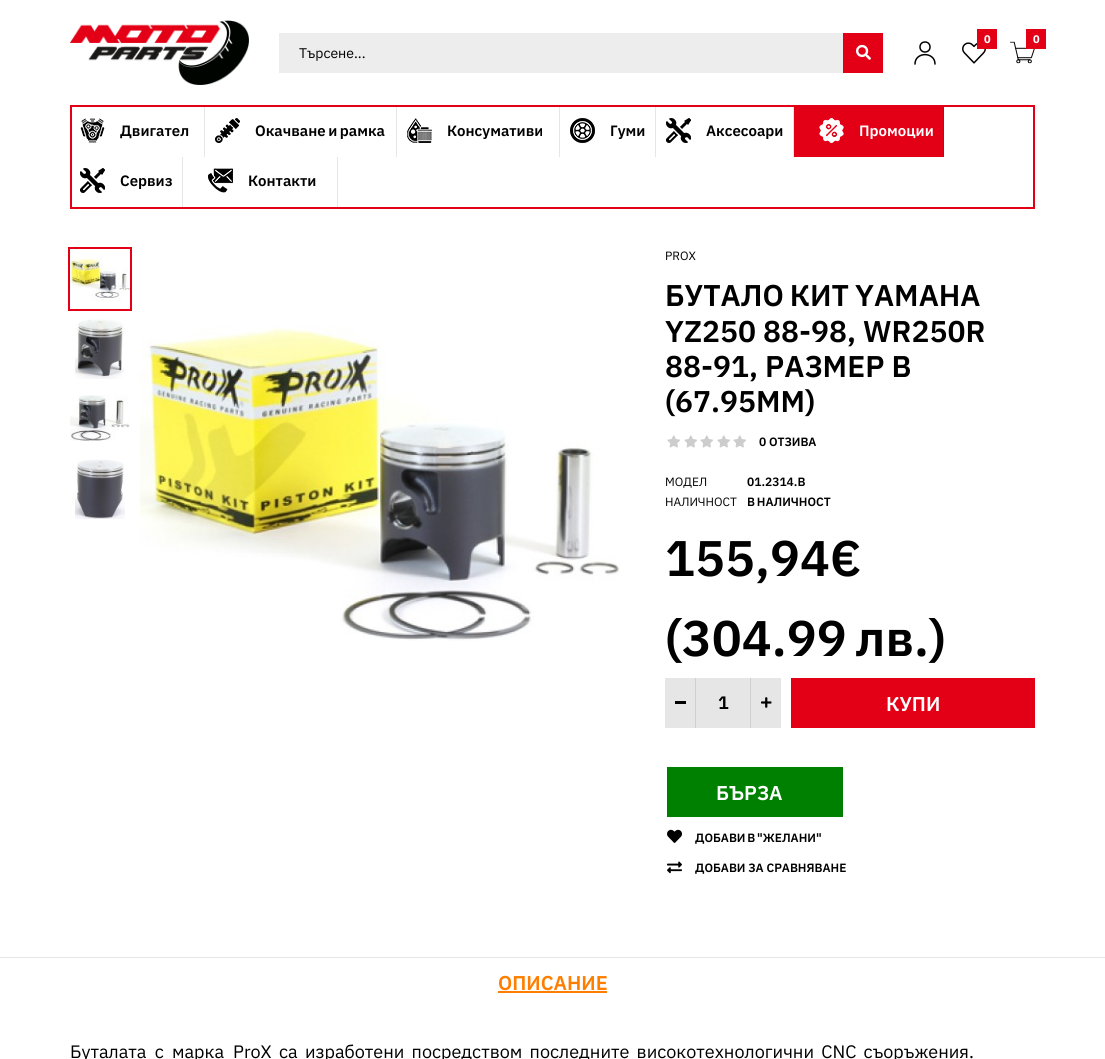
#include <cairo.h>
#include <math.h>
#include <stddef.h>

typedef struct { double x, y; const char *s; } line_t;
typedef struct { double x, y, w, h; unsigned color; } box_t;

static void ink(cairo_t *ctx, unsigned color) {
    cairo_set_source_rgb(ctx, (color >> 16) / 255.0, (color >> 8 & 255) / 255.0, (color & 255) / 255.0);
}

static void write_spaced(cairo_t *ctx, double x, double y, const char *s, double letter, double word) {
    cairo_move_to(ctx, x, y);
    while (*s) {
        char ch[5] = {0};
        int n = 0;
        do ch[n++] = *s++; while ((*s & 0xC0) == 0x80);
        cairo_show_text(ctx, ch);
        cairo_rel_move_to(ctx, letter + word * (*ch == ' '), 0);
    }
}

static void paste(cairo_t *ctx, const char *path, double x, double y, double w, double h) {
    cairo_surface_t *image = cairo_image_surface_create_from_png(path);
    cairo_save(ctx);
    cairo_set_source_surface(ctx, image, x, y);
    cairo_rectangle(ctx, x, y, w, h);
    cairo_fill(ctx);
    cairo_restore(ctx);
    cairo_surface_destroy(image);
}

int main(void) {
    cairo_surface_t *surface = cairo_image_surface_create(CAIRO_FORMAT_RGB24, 1105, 1059);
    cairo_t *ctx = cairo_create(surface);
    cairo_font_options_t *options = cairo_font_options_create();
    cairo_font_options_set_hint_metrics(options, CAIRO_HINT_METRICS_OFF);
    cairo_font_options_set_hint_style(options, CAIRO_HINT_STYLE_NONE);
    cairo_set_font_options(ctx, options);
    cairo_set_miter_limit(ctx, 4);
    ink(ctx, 0xFFFFFF);
    cairo_paint(ctx);
    paste(ctx, "media/1.png", 70, 20, 179, 65);
    paste(ctx, "media/2.png", 962, 42, 24, 22);
    ink(ctx, 0xE30016);
    cairo_rectangle(ctx, 977, 29, 20, 20);
    cairo_fill(ctx);
    cairo_select_font_face(ctx, "IBM Plex Sans", CAIRO_FONT_SLANT_NORMAL, CAIRO_FONT_WEIGHT_BOLD);
    cairo_set_font_size(ctx, 11);
    ink(ctx, 0xFFFFFF);
    cairo_move_to(ctx, 984, 43);
    cairo_show_text(ctx, "0");
    paste(ctx, "media/3.png", 1010, 41, 25, 23);
    ink(ctx, 0xE30016);
    cairo_rectangle(ctx, 1026, 29, 20, 20);
    cairo_fill(ctx);
    ink(ctx, 0xFFFFFF);
    cairo_move_to(ctx, 1033, 43);
    cairo_show_text(ctx, "0");
    cairo_new_path(ctx);
    cairo_arc(ctx, 925, 47, 5, 0, 2 * M_PI);
    ink(ctx, 0x000000);
    cairo_set_line_width(ctx, 1.5);
    cairo_stroke(ctx);
    cairo_new_path(ctx);
    cairo_move_to(ctx, 915, 64);
    cairo_curve_to(ctx, 915, 51.5, 935, 51.5, 935, 64);
    cairo_set_line_cap(ctx, CAIRO_LINE_CAP_ROUND);
    cairo_set_line_join(ctx, CAIRO_LINE_JOIN_ROUND);
    cairo_stroke(ctx);
    ink(ctx, 0xEDEDED);
    cairo_rectangle(ctx, 279, 33, 564, 40);
    cairo_fill(ctx);
    cairo_select_font_face(ctx, "IBM Plex Sans", CAIRO_FONT_SLANT_NORMAL, CAIRO_FONT_WEIGHT_NORMAL);
    cairo_set_font_size(ctx, 14);
    ink(ctx, 0x000000);
    cairo_move_to(ctx, 299, 58);
    cairo_show_text(ctx, "Търсене...");
    ink(ctx, 0xE30016);
    cairo_rectangle(ctx, 843, 33, 40, 40);
    cairo_fill(ctx);
    paste(ctx, "media/4.png", 856, 44, 15, 16);
    cairo_rectangle(ctx, 71, 106, 963, 102);
    cairo_set_line_width(ctx, 2);
    cairo_set_line_cap(ctx, CAIRO_LINE_CAP_BUTT);
    cairo_set_line_join(ctx, CAIRO_LINE_JOIN_MITER);
    cairo_stroke(ctx);
    ink(ctx, 0xE6E6E6);
    cairo_rectangle(ctx, 204, 107, 1, 50);
    cairo_fill(ctx);
    paste(ctx, "media/5.png", 80, 118, 25, 25);
    cairo_select_font_face(ctx, "IBM Plex Sans SemiBold", CAIRO_FONT_SLANT_NORMAL, CAIRO_FONT_WEIGHT_NORMAL);
    cairo_set_font_size(ctx, 15);
    ink(ctx, 0x000000);
    cairo_move_to(ctx, 120, 136);
    cairo_show_text(ctx, "Двигател");
    ink(ctx, 0xE6E6E6);
    cairo_rectangle(ctx, 396, 107, 1, 50);
    cairo_fill(ctx);
    paste(ctx, "media/6.png", 215, 118, 25, 25);
    ink(ctx, 0x000000);
    write_spaced(ctx, 255, 136, "Окачване и рамка", 0, -1);
    ink(ctx, 0xE6E6E6);
    cairo_rectangle(ctx, 559, 107, 1, 50);
    cairo_fill(ctx);
    paste(ctx, "media/7.png", 407, 118, 25, 25);
    ink(ctx, 0x000000);
    cairo_move_to(ctx, 447, 136);
    cairo_show_text(ctx, "Консумативи");
    ink(ctx, 0xE6E6E6);
    cairo_rectangle(ctx, 655, 107, 1, 50);
    cairo_fill(ctx);
    paste(ctx, "media/8.png", 570, 118, 25, 25);
    ink(ctx, 0x000000);
    cairo_move_to(ctx, 610, 136);
    cairo_show_text(ctx, "Гуми");
    ink(ctx, 0xE6E6E6);
    cairo_rectangle(ctx, 793, 107, 1, 50);
    cairo_fill(ctx);
    paste(ctx, "media/9.png", 666, 118, 25, 25);
    ink(ctx, 0x000000);
    cairo_move_to(ctx, 706, 136);
    cairo_show_text(ctx, "Аксесоари");
    ink(ctx, 0xE30016);
    cairo_rectangle(ctx, 794, 107, 149, 50);
    cairo_fill(ctx);
    ink(ctx, 0xCC0014);
    cairo_rectangle(ctx, 943, 107, 1, 50);
    cairo_fill(ctx);
    paste(ctx, "media/10.png", 819, 118, 25, 25);
    ink(ctx, 0xFFFFFF);
    cairo_move_to(ctx, 859, 136);
    cairo_show_text(ctx, "Промоции");
    ink(ctx, 0xE6E6E6);
    cairo_rectangle(ctx, 182, 157, 1, 50);
    cairo_fill(ctx);
    paste(ctx, "media/9.png", 80, 168, 25, 25);
    ink(ctx, 0x000000);
    cairo_move_to(ctx, 120, 186);
    cairo_show_text(ctx, "Сервиз");
    ink(ctx, 0xE6E6E6);
    cairo_rectangle(ctx, 337, 157, 1, 50);
    cairo_fill(ctx);
    paste(ctx, "media/11.png", 208, 168, 25, 25);
    ink(ctx, 0x000000);
    cairo_move_to(ctx, 248, 186);
    cairo_show_text(ctx, "Контакти");
    cairo_rectangle(ctx, 69, 248, 62, 62);
    ink(ctx, 0xE30016);
    cairo_stroke(ctx);
    paste(ctx, "media/12.png", 70, 251, 60, 50);
    paste(ctx, "media/13.png", 75, 319, 50, 60);
    paste(ctx, "media/14.png", 70, 395, 60, 46);
    paste(ctx, "media/15.png", 71, 459, 54, 60);
    paste(ctx, "media/16.png", 140, 326, 480, 315);
    cairo_select_font_face(ctx, "IBM Plex Sans", CAIRO_FONT_SLANT_NORMAL, CAIRO_FONT_WEIGHT_NORMAL);
    cairo_set_font_size(ctx, 12);
    ink(ctx, 0x000000);
    cairo_move_to(ctx, 665, 260);
    cairo_show_text(ctx, "PROX");
    cairo_select_font_face(ctx, "IBM Plex Sans SemiBold", CAIRO_FONT_SLANT_NORMAL, CAIRO_FONT_WEIGHT_NORMAL);
    cairo_set_font_size(ctx, 30);
    write_spaced(ctx, 665, 306, "БУТАЛО КИТ YAMAHA", 0, -1);
    {
        static const line_t items[] = {
            {665, 342, "YZ250 88-98, WR250R"},
            {665, 377, "88-91, РАЗМЕР B"},
            {665, 412, "(67.95MM)"},
        };
        for (size_t i = 0; i < sizeof items / sizeof *items; i++) {
            cairo_move_to(ctx, items[i].x, items[i].y);
            cairo_show_text(ctx, items[i].s);
        }
    }
    paste(ctx, "media/17.png", 667, 435, 13, 13);
    paste(ctx, "media/17.png", 684, 435, 13, 13);
    paste(ctx, "media/17.png", 700, 435, 13, 13);
    paste(ctx, "media/17.png", 717, 435, 13, 13);
    paste(ctx, "media/17.png", 733, 435, 13, 13);
    cairo_set_font_size(ctx, 12);
    cairo_move_to(ctx, 759, 446);
    cairo_show_text(ctx, "0 ОТЗИВА");
    cairo_select_font_face(ctx, "IBM Plex Sans", CAIRO_FONT_SLANT_NORMAL, CAIRO_FONT_WEIGHT_NORMAL);
    cairo_move_to(ctx, 665, 486);
    cairo_show_text(ctx, "МОДЕЛ");
    cairo_move_to(ctx, 665, 506);
    cairo_show_text(ctx, "НАЛИЧНОСТ");
    cairo_select_font_face(ctx, "IBM Plex Sans SemiBold", CAIRO_FONT_SLANT_NORMAL, CAIRO_FONT_WEIGHT_NORMAL);
    cairo_move_to(ctx, 747, 486);
    cairo_show_text(ctx, "01.2314.B");
    write_spaced(ctx, 747, 506, "В НАЛИЧНОСТ", 0, -1);
    cairo_set_font_size(ctx, 50);
    cairo_move_to(ctx, 665, 576);
    cairo_show_text(ctx, "155,94€");
    write_spaced(ctx, 665, 656, "(304.99 лв.)", 0, -3);
    {
        static const box_t items[] = {
            {665, 678, 116, 50, 0xE6E6E6},
            {695, 678, 1, 50, 0xCFCFCF},
            {675, 701, 11, 3, 0x000000},
        };
        for (size_t i = 0; i < sizeof items / sizeof *items; i++) {
            ink(ctx, items[i].color);
            cairo_rectangle(ctx, items[i].x, items[i].y, items[i].w, items[i].h);
            cairo_fill(ctx);
        }
    }
    cairo_set_font_size(ctx, 18);
    cairo_move_to(ctx, 718, 709);
    cairo_show_text(ctx, "1");
    ink(ctx, 0xCFCFCF);
    cairo_rectangle(ctx, 750, 678, 1, 50);
    cairo_fill(ctx);
    paste(ctx, "media/18.png", 761, 697, 11, 11);
    ink(ctx, 0xE30016);
    cairo_rectangle(ctx, 791, 678, 244, 50);
    cairo_fill(ctx);
    cairo_set_font_size(ctx, 20);
    ink(ctx, 0xFFFFFF);
    cairo_move_to(ctx, 886, 711);
    cairo_show_text(ctx, "КУПИ");
    ink(ctx, 0x008000);
    cairo_rectangle(ctx, 667, 767, 176, 50);
    cairo_fill(ctx);
    ink(ctx, 0xFFFFFF);
    cairo_move_to(ctx, 716, 800);
    cairo_show_text(ctx, "БЪРЗА");
    paste(ctx, "media/19.png", 667, 829, 15, 14);
    cairo_set_font_size(ctx, 12);
    ink(ctx, 0x000000);
    write_spaced(ctx, 695, 842, "ДОБАВИ В \"ЖЕЛАНИ\"", 0, -1);
    paste(ctx, "media/20.png", 667, 861, 15, 13);
    cairo_move_to(ctx, 695, 872);
    cairo_show_text(ctx, "ДОБАВИ ЗА СРАВНЯВАНЕ");
    ink(ctx, 0xE6E6E6);
    cairo_rectangle(ctx, 0, 957, 1105, 1);
    cairo_fill(ctx);
    cairo_set_font_size(ctx, 20);
    ink(ctx, 0xFF7E00);
    cairo_move_to(ctx, 498, 990);
    cairo_show_text(ctx, "ОПИСАНИЕ");
    cairo_rectangle(ctx, 498, 991, 109, 2);
    cairo_fill(ctx);
    cairo_select_font_face(ctx, "IBM Plex Sans", CAIRO_FONT_SLANT_NORMAL, CAIRO_FONT_WEIGHT_NORMAL);
    cairo_set_font_size(ctx, 18);
    ink(ctx, 0x000000);
    write_spaced(ctx, 70, 1058, "Буталата с марка", 0, 4);
    cairo_move_to(ctx, 233, 1058);
    cairo_show_text(ctx, "ProX");
    write_spaced(ctx, 279, 1058, "са изработени посредством последните високотехнологични CNC съоръжения.", 0, 3);
    cairo_surface_write_to_png(surface, "image.png");
    cairo_font_options_destroy(options);
    cairo_destroy(ctx);
    cairo_surface_destroy(surface);
    return 0;
}
